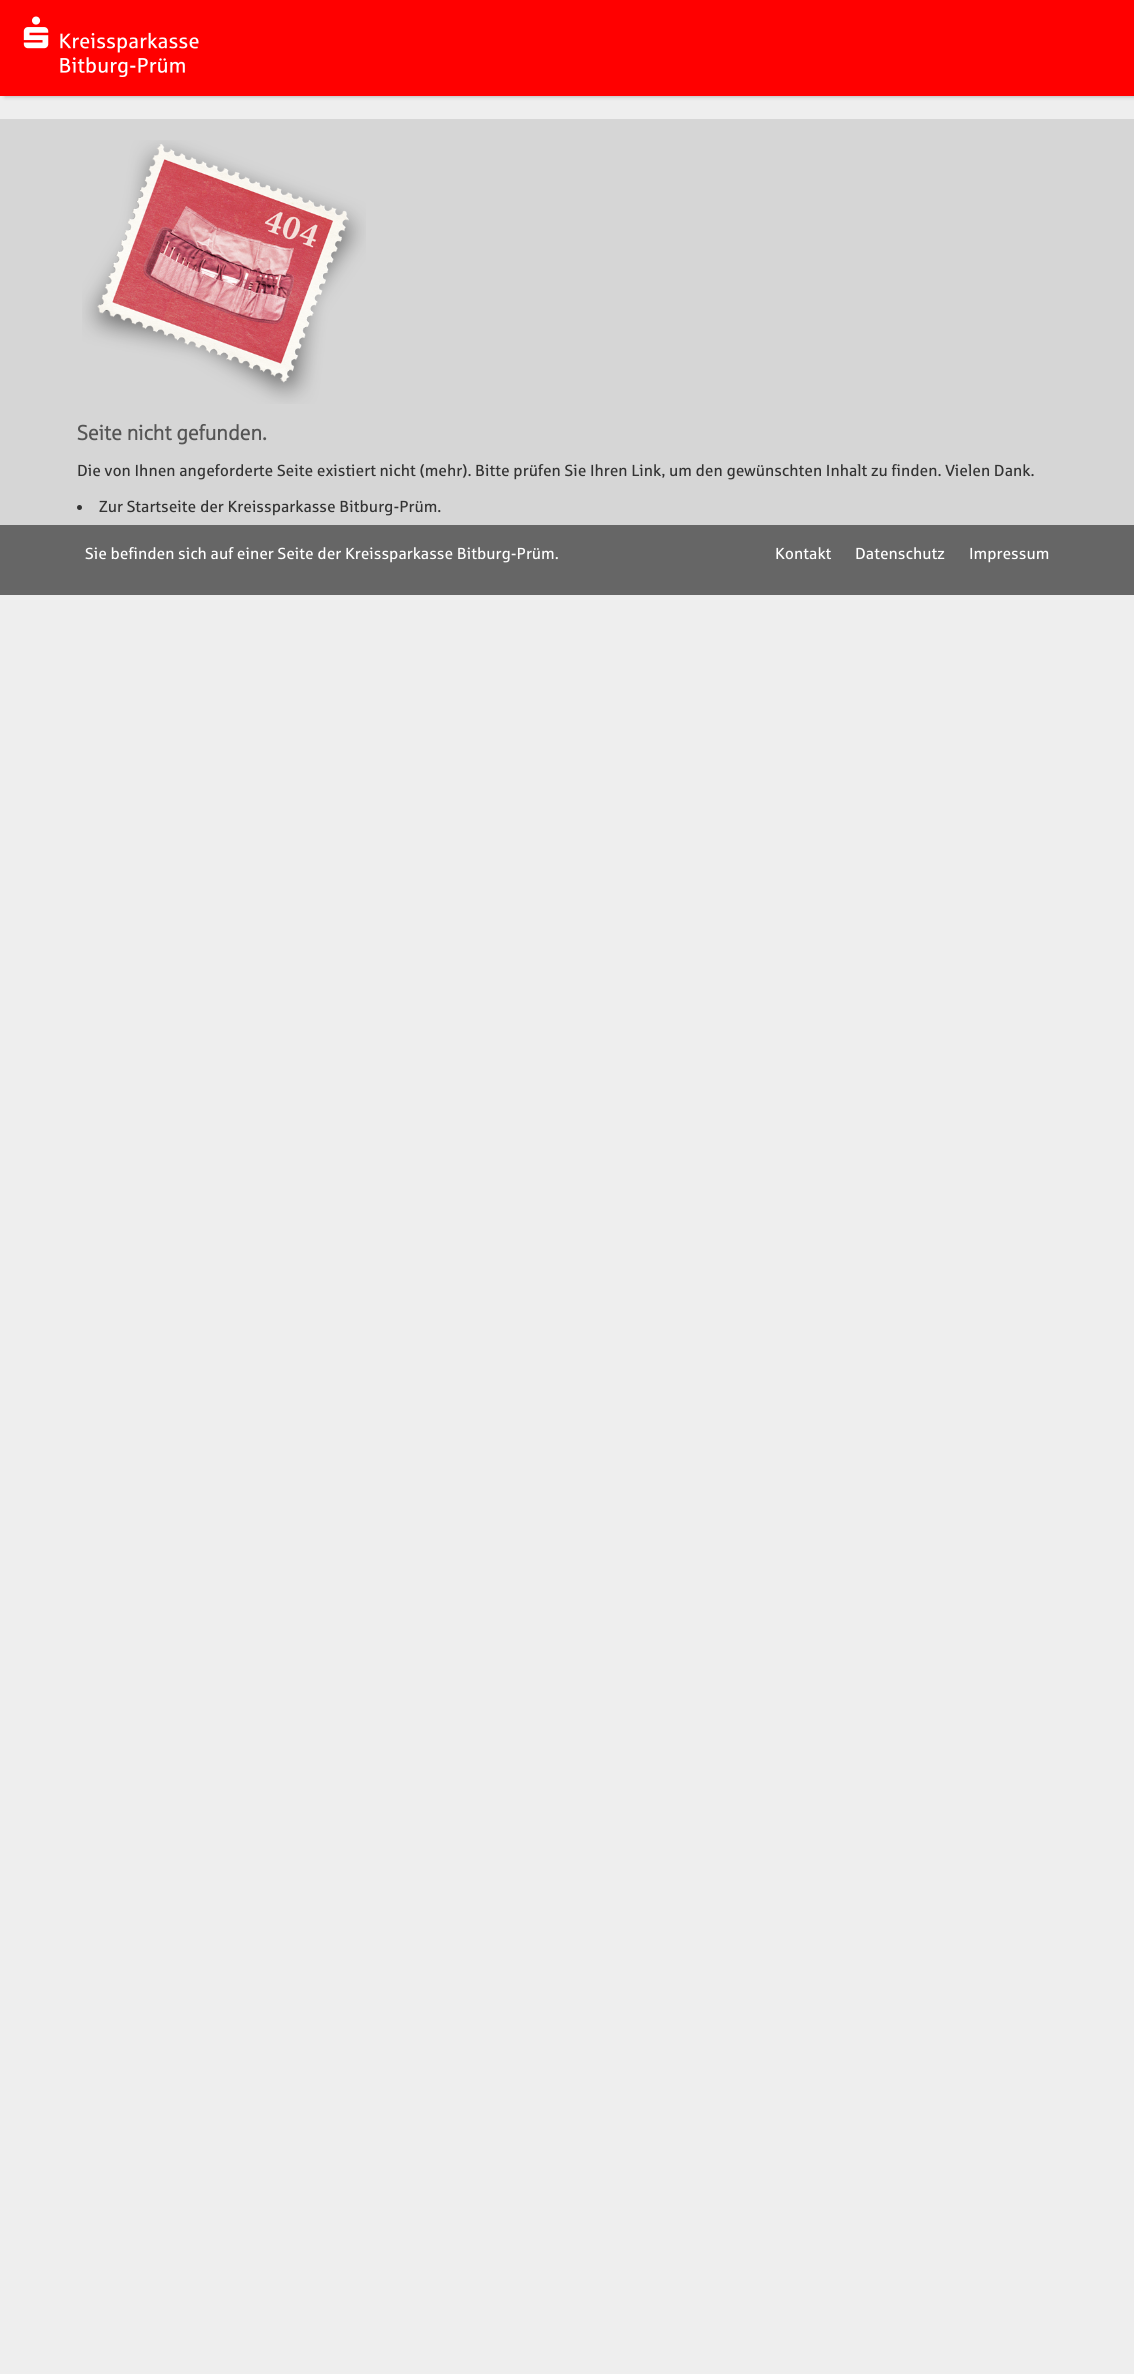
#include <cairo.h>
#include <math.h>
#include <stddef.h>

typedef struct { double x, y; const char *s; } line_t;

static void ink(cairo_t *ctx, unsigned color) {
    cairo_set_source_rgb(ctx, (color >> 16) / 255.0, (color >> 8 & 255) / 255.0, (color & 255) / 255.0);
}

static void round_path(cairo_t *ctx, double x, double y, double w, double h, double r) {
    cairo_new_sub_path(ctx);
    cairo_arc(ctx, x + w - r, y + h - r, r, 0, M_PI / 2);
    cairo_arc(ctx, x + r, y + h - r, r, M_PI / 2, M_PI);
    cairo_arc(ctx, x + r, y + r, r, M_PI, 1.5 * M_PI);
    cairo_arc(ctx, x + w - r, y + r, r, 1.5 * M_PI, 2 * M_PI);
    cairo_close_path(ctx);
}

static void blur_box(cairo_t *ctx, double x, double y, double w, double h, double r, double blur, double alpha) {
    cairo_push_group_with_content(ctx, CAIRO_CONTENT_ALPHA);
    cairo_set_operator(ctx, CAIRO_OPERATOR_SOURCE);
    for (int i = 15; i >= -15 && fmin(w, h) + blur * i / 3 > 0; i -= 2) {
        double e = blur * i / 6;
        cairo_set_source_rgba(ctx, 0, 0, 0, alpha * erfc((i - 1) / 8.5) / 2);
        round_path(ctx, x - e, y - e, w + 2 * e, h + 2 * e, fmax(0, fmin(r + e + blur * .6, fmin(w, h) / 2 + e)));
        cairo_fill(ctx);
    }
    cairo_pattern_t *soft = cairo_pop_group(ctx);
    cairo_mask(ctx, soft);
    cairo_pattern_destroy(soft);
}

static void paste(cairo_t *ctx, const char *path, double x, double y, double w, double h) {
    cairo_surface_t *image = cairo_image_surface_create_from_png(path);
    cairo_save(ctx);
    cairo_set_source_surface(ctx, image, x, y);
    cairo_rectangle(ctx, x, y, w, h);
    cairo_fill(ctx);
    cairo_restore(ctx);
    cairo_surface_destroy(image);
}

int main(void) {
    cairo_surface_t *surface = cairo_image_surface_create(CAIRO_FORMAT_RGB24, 1134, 2374);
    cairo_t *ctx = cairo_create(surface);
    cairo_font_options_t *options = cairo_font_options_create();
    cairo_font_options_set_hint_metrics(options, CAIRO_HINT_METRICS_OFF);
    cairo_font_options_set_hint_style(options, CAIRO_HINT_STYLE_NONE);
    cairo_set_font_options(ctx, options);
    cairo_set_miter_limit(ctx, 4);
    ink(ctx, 0xEEEEEE);
    cairo_paint(ctx);
    ink(ctx, 0x000000);
    blur_box(ctx, 5, 0, 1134, 96, 0, 2.5, 0.3);
    ink(ctx, 0xFF0000);
    cairo_rectangle(ctx, 0, 0, 1134, 96);
    cairo_fill(ctx);
    paste(ctx, "media/1.png", 23, 16, 176, 61);
    ink(ctx, 0xD6D6D6);
    cairo_rectangle(ctx, 0, 119, 1134, 406);
    cairo_fill(ctx);
    paste(ctx, "media/2.png", 82, 140, 284, 264);
    cairo_select_font_face(ctx, "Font", CAIRO_FONT_SLANT_NORMAL, CAIRO_FONT_WEIGHT_BOLD);
    cairo_set_font_size(ctx, 20.75);
    ink(ctx, 0x555555);
    cairo_move_to(ctx, 77, 440);
    cairo_show_text(ctx, "Seite nicht gefunden.");
    cairo_select_font_face(ctx, "Font", CAIRO_FONT_SLANT_NORMAL, CAIRO_FONT_WEIGHT_NORMAL);
    cairo_set_font_size(ctx, 16);
    ink(ctx, 0x333333);
    cairo_move_to(ctx, 77, 476);
    cairo_show_text(ctx, "Die von Ihnen angeforderte Seite existiert nicht (mehr). Bitte prüfen Sie Ihren Link, um den gewünschten Inhalt zu finden. Vielen Dank.");
    cairo_new_path(ctx);
    cairo_arc(ctx, 79.5, 507.5, 2.5, 0, 2 * M_PI);
    cairo_fill(ctx);
    cairo_move_to(ctx, 99, 512);
    cairo_show_text(ctx, "Zur Startseite der Kreissparkasse Bitburg-Prüm.");
    ink(ctx, 0x666666);
    cairo_rectangle(ctx, 0, 525, 1134, 70);
    cairo_fill(ctx);
    ink(ctx, 0xFFFFFF);
    {
        static const line_t items[] = {
            {85, 559, "Sie befinden sich auf einer Seite der Kreissparkasse Bitburg-Prüm."},
            {775, 559, "Kontakt"},
            {855, 559, "Datenschutz"},
            {969, 559, "Impressum"},
        };
        for (size_t i = 0; i < sizeof items / sizeof *items; i++) {
            cairo_move_to(ctx, items[i].x, items[i].y);
            cairo_show_text(ctx, items[i].s);
        }
    }
    cairo_surface_write_to_png(surface, "image.png");
    cairo_font_options_destroy(options);
    cairo_destroy(ctx);
    cairo_surface_destroy(surface);
    return 0;
}
